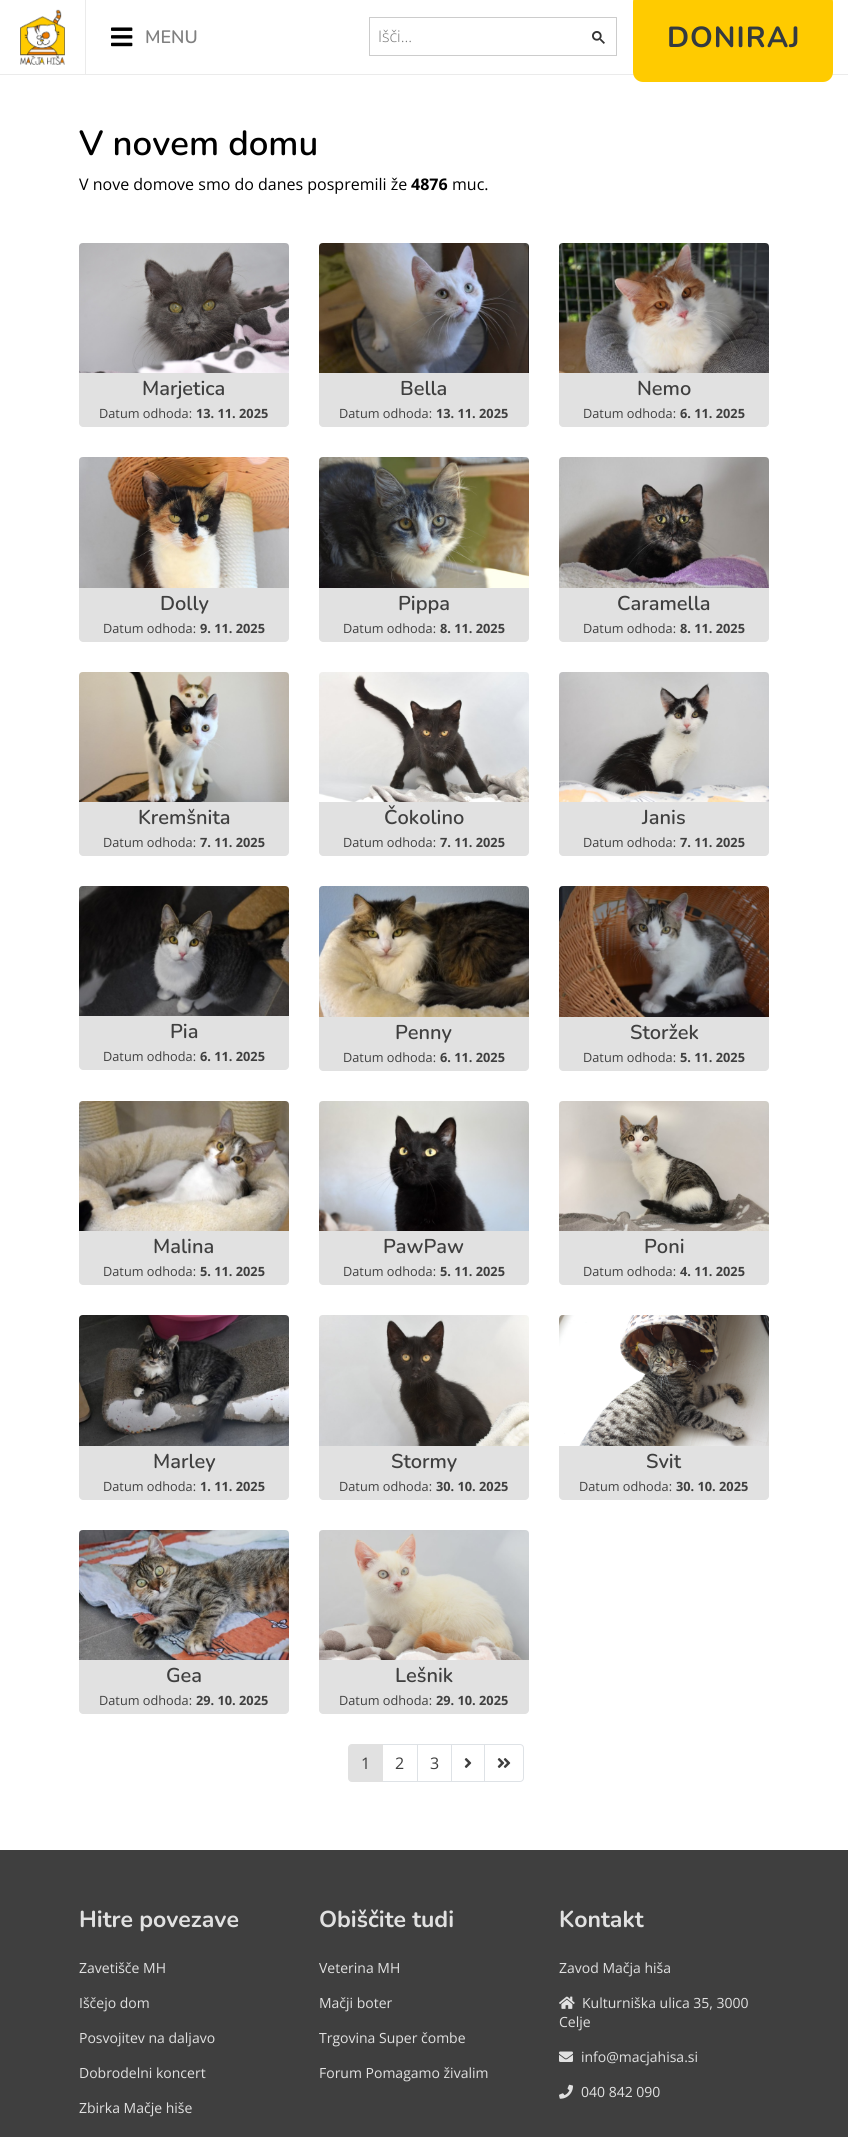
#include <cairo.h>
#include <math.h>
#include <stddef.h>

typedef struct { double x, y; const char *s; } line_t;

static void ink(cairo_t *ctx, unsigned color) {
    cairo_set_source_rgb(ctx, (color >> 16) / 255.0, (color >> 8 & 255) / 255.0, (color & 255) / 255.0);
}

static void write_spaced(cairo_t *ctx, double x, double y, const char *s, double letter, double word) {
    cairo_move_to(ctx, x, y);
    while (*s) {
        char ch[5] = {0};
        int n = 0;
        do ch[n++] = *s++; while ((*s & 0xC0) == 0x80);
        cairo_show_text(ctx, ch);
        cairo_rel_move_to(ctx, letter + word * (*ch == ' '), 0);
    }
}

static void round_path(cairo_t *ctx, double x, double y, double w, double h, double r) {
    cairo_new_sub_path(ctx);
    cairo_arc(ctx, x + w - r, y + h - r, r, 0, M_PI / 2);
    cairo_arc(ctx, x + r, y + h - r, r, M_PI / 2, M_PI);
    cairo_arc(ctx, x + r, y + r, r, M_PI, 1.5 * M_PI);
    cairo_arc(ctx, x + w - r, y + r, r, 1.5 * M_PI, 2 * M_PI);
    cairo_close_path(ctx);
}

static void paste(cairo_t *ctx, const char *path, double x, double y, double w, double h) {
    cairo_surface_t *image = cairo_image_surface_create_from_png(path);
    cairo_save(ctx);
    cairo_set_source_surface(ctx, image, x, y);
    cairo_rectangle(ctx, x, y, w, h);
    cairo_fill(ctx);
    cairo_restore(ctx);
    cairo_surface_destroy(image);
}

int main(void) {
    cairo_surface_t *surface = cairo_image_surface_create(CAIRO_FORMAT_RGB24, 848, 2137);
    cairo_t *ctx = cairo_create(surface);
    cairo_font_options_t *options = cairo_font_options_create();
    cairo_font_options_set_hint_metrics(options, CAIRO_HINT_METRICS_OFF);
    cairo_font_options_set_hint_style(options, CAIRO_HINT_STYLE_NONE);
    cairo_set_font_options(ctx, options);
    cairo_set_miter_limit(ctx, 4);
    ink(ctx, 0xFFFFFF);
    cairo_paint(ctx);
    ink(ctx, 0xEBEBEB);
    cairo_rectangle(ctx, 0, 74, 848, 1);
    cairo_fill(ctx);
    cairo_rectangle(ctx, 85, 0, 1, 74);
    cairo_fill(ctx);
    paste(ctx, "media/1.png", 20, 9, 45, 56);
    paste(ctx, "media/2.png", 111, 27, 22, 20);
    cairo_select_font_face(ctx, "Nunito SemiBold", CAIRO_FONT_SLANT_NORMAL, CAIRO_FONT_WEIGHT_NORMAL);
    cairo_set_font_size(ctx, 18);
    ink(ctx, 0x808080);
    cairo_move_to(ctx, 145, 43);
    cairo_show_text(ctx, "MENU");
    ink(ctx, 0xCCCCCC);
    cairo_new_path(ctx);
    cairo_move_to(ctx, 369, 17);
    cairo_line_to(ctx, 590, 17);
    cairo_line_to(ctx, 590, 18);
    cairo_line_to(ctx, 370, 18);
    cairo_close_path(ctx);
    cairo_fill(ctx);
    cairo_new_path(ctx);
    cairo_move_to(ctx, 590, 56);
    cairo_line_to(ctx, 369, 56);
    cairo_line_to(ctx, 370, 55);
    cairo_line_to(ctx, 590, 55);
    cairo_close_path(ctx);
    cairo_fill(ctx);
    cairo_set_source_rgba(ctx, 0, 0, 0, 0.2);
    cairo_new_path(ctx);
    cairo_move_to(ctx, 369, 56);
    cairo_line_to(ctx, 369, 17);
    cairo_line_to(ctx, 370, 18);
    cairo_line_to(ctx, 370, 55);
    cairo_close_path(ctx);
    cairo_fill(ctx);
    cairo_select_font_face(ctx, "Open Sans Light", CAIRO_FONT_SLANT_NORMAL, CAIRO_FONT_WEIGHT_NORMAL);
    cairo_set_font_size(ctx, 16);
    ink(ctx, 0x757575);
    cairo_move_to(ctx, 378, 42);
    cairo_show_text(ctx, "Išči...");
    ink(ctx, 0xCCCCCC);
    cairo_new_path(ctx);
    cairo_move_to(ctx, 590, 17);
    cairo_line_to(ctx, 617, 17);
    cairo_line_to(ctx, 616, 18);
    cairo_line_to(ctx, 590, 18);
    cairo_close_path(ctx);
    cairo_fill(ctx);
    cairo_set_source_rgba(ctx, 0, 0, 0, 0.2);
    cairo_new_path(ctx);
    cairo_move_to(ctx, 617, 17);
    cairo_line_to(ctx, 617, 56);
    cairo_line_to(ctx, 616, 55);
    cairo_line_to(ctx, 616, 18);
    cairo_close_path(ctx);
    cairo_fill(ctx);
    cairo_new_path(ctx);
    cairo_move_to(ctx, 617, 56);
    cairo_line_to(ctx, 590, 56);
    cairo_line_to(ctx, 590, 55);
    cairo_line_to(ctx, 616, 55);
    cairo_close_path(ctx);
    cairo_fill(ctx);
    paste(ctx, "media/3.png", 592, 31, 13, 13);
    ink(ctx, 0xFFCB00);
    round_path(ctx, 633, -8, 200, 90, 10);
    cairo_fill(ctx);
    cairo_select_font_face(ctx, "Nunito", CAIRO_FONT_SLANT_NORMAL, CAIRO_FONT_WEIGHT_BOLD);
    cairo_set_font_size(ctx, 29);
    ink(ctx, 0x343A40);
    write_spaced(ctx, 667, 47, "DONIRAJ", 1, 0);
    cairo_select_font_face(ctx, "Nunito SemiBold", CAIRO_FONT_SLANT_NORMAL, CAIRO_FONT_WEIGHT_NORMAL);
    cairo_set_font_size(ctx, 34.75);
    ink(ctx, 0x000000);
    cairo_move_to(ctx, 79, 155);
    cairo_show_text(ctx, "V novem domu");
    cairo_select_font_face(ctx, "Open Sans", CAIRO_FONT_SLANT_NORMAL, CAIRO_FONT_WEIGHT_NORMAL);
    cairo_set_font_size(ctx, 16);
    cairo_move_to(ctx, 79, 190);
    cairo_show_text(ctx, "V nove domove smo do danes pospremili že");
    cairo_select_font_face(ctx, "Open Sans", CAIRO_FONT_SLANT_NORMAL, CAIRO_FONT_WEIGHT_BOLD);
    cairo_move_to(ctx, 411, 190);
    cairo_show_text(ctx, "4876");
    cairo_select_font_face(ctx, "Open Sans", CAIRO_FONT_SLANT_NORMAL, CAIRO_FONT_WEIGHT_NORMAL);
    cairo_move_to(ctx, 452, 190);
    cairo_show_text(ctx, "muc.");
    paste(ctx, "media/4.png", 79, 243, 210, 130);
    ink(ctx, 0xE1E1E1);
    cairo_new_path(ctx);
    cairo_move_to(ctx, 79, 373);
    cairo_line_to(ctx, 289, 373);
    cairo_line_to(ctx, 289, 423);
    cairo_curve_to(ctx, 289, 425, 287, 427, 285, 427);
    cairo_line_to(ctx, 83, 427);
    cairo_curve_to(ctx, 81, 427, 79, 425, 79, 423);
    cairo_close_path(ctx);
    cairo_fill(ctx);
    cairo_select_font_face(ctx, "Nunito SemiBold", CAIRO_FONT_SLANT_NORMAL, CAIRO_FONT_WEIGHT_NORMAL);
    cairo_set_font_size(ctx, 20);
    ink(ctx, 0x3F3F3F);
    cairo_move_to(ctx, 142, 395);
    cairo_show_text(ctx, "Marjetica");
    cairo_select_font_face(ctx, "Open Sans", CAIRO_FONT_SLANT_NORMAL, CAIRO_FONT_WEIGHT_NORMAL);
    cairo_set_font_size(ctx, 12.75);
    cairo_move_to(ctx, 99, 418);
    cairo_show_text(ctx, "Datum odhoda:");
    cairo_select_font_face(ctx, "Open Sans", CAIRO_FONT_SLANT_NORMAL, CAIRO_FONT_WEIGHT_BOLD);
    cairo_move_to(ctx, 196, 418);
    cairo_show_text(ctx, "13. 11. 2025");
    paste(ctx, "media/5.png", 319, 243, 210, 130);
    ink(ctx, 0xE1E1E1);
    cairo_new_path(ctx);
    cairo_move_to(ctx, 319, 373);
    cairo_line_to(ctx, 529, 373);
    cairo_line_to(ctx, 529, 423);
    cairo_curve_to(ctx, 529, 425, 527, 427, 525, 427);
    cairo_line_to(ctx, 323, 427);
    cairo_curve_to(ctx, 321, 427, 319, 425, 319, 423);
    cairo_close_path(ctx);
    cairo_fill(ctx);
    cairo_select_font_face(ctx, "Nunito SemiBold", CAIRO_FONT_SLANT_NORMAL, CAIRO_FONT_WEIGHT_NORMAL);
    cairo_set_font_size(ctx, 20);
    ink(ctx, 0x3F3F3F);
    cairo_move_to(ctx, 400, 395);
    cairo_show_text(ctx, "Bella");
    cairo_select_font_face(ctx, "Open Sans", CAIRO_FONT_SLANT_NORMAL, CAIRO_FONT_WEIGHT_NORMAL);
    cairo_set_font_size(ctx, 12.75);
    cairo_move_to(ctx, 339, 418);
    cairo_show_text(ctx, "Datum odhoda:");
    cairo_select_font_face(ctx, "Open Sans", CAIRO_FONT_SLANT_NORMAL, CAIRO_FONT_WEIGHT_BOLD);
    cairo_move_to(ctx, 436, 418);
    cairo_show_text(ctx, "13. 11. 2025");
    paste(ctx, "media/6.png", 559, 243, 210, 130);
    ink(ctx, 0xE1E1E1);
    cairo_new_path(ctx);
    cairo_move_to(ctx, 559, 373);
    cairo_line_to(ctx, 769, 373);
    cairo_line_to(ctx, 769, 423);
    cairo_curve_to(ctx, 769, 425, 767, 427, 765, 427);
    cairo_line_to(ctx, 563, 427);
    cairo_curve_to(ctx, 561, 427, 559, 425, 559, 423);
    cairo_close_path(ctx);
    cairo_fill(ctx);
    cairo_select_font_face(ctx, "Nunito SemiBold", CAIRO_FONT_SLANT_NORMAL, CAIRO_FONT_WEIGHT_NORMAL);
    cairo_set_font_size(ctx, 20);
    ink(ctx, 0x3F3F3F);
    cairo_move_to(ctx, 637, 395);
    cairo_show_text(ctx, "Nemo");
    cairo_select_font_face(ctx, "Open Sans", CAIRO_FONT_SLANT_NORMAL, CAIRO_FONT_WEIGHT_NORMAL);
    cairo_set_font_size(ctx, 12.75);
    cairo_move_to(ctx, 583, 418);
    cairo_show_text(ctx, "Datum odhoda:");
    cairo_select_font_face(ctx, "Open Sans", CAIRO_FONT_SLANT_NORMAL, CAIRO_FONT_WEIGHT_BOLD);
    cairo_move_to(ctx, 680, 418);
    cairo_show_text(ctx, "6. 11. 2025");
    paste(ctx, "media/7.png", 79, 457, 210, 131);
    ink(ctx, 0xE1E1E1);
    cairo_new_path(ctx);
    cairo_move_to(ctx, 79, 588);
    cairo_line_to(ctx, 289, 588);
    cairo_line_to(ctx, 289, 638);
    cairo_curve_to(ctx, 289, 640, 287, 642, 285, 642);
    cairo_line_to(ctx, 83, 642);
    cairo_curve_to(ctx, 81, 642, 79, 640, 79, 638);
    cairo_close_path(ctx);
    cairo_fill(ctx);
    cairo_select_font_face(ctx, "Nunito SemiBold", CAIRO_FONT_SLANT_NORMAL, CAIRO_FONT_WEIGHT_NORMAL);
    cairo_set_font_size(ctx, 20);
    ink(ctx, 0x3F3F3F);
    cairo_move_to(ctx, 160, 610);
    cairo_show_text(ctx, "Dolly");
    cairo_select_font_face(ctx, "Open Sans", CAIRO_FONT_SLANT_NORMAL, CAIRO_FONT_WEIGHT_NORMAL);
    cairo_set_font_size(ctx, 12.75);
    cairo_move_to(ctx, 103, 633);
    cairo_show_text(ctx, "Datum odhoda:");
    cairo_select_font_face(ctx, "Open Sans", CAIRO_FONT_SLANT_NORMAL, CAIRO_FONT_WEIGHT_BOLD);
    cairo_move_to(ctx, 200, 633);
    cairo_show_text(ctx, "9. 11. 2025");
    paste(ctx, "media/8.png", 319, 457, 210, 131);
    ink(ctx, 0xE1E1E1);
    cairo_new_path(ctx);
    cairo_move_to(ctx, 319, 588);
    cairo_line_to(ctx, 529, 588);
    cairo_line_to(ctx, 529, 638);
    cairo_curve_to(ctx, 529, 640, 527, 642, 525, 642);
    cairo_line_to(ctx, 323, 642);
    cairo_curve_to(ctx, 321, 642, 319, 640, 319, 638);
    cairo_close_path(ctx);
    cairo_fill(ctx);
    cairo_select_font_face(ctx, "Nunito SemiBold", CAIRO_FONT_SLANT_NORMAL, CAIRO_FONT_WEIGHT_NORMAL);
    cairo_set_font_size(ctx, 20);
    ink(ctx, 0x3F3F3F);
    cairo_move_to(ctx, 398, 610);
    cairo_show_text(ctx, "Pippa");
    cairo_select_font_face(ctx, "Open Sans", CAIRO_FONT_SLANT_NORMAL, CAIRO_FONT_WEIGHT_NORMAL);
    cairo_set_font_size(ctx, 12.75);
    cairo_move_to(ctx, 343, 633);
    cairo_show_text(ctx, "Datum odhoda:");
    cairo_select_font_face(ctx, "Open Sans", CAIRO_FONT_SLANT_NORMAL, CAIRO_FONT_WEIGHT_BOLD);
    cairo_move_to(ctx, 440, 633);
    cairo_show_text(ctx, "8. 11. 2025");
    paste(ctx, "media/9.png", 559, 457, 210, 131);
    ink(ctx, 0xE1E1E1);
    cairo_new_path(ctx);
    cairo_move_to(ctx, 559, 588);
    cairo_line_to(ctx, 769, 588);
    cairo_line_to(ctx, 769, 638);
    cairo_curve_to(ctx, 769, 640, 767, 642, 765, 642);
    cairo_line_to(ctx, 563, 642);
    cairo_curve_to(ctx, 561, 642, 559, 640, 559, 638);
    cairo_close_path(ctx);
    cairo_fill(ctx);
    cairo_select_font_face(ctx, "Nunito SemiBold", CAIRO_FONT_SLANT_NORMAL, CAIRO_FONT_WEIGHT_NORMAL);
    cairo_set_font_size(ctx, 20);
    ink(ctx, 0x3F3F3F);
    cairo_move_to(ctx, 617, 610);
    cairo_show_text(ctx, "Caramella");
    cairo_select_font_face(ctx, "Open Sans", CAIRO_FONT_SLANT_NORMAL, CAIRO_FONT_WEIGHT_NORMAL);
    cairo_set_font_size(ctx, 12.75);
    cairo_move_to(ctx, 583, 633);
    cairo_show_text(ctx, "Datum odhoda:");
    cairo_select_font_face(ctx, "Open Sans", CAIRO_FONT_SLANT_NORMAL, CAIRO_FONT_WEIGHT_BOLD);
    cairo_move_to(ctx, 680, 633);
    cairo_show_text(ctx, "8. 11. 2025");
    paste(ctx, "media/10.png", 79, 672, 210, 130);
    ink(ctx, 0xE1E1E1);
    cairo_new_path(ctx);
    cairo_move_to(ctx, 79, 802);
    cairo_line_to(ctx, 289, 802);
    cairo_line_to(ctx, 289, 852);
    cairo_curve_to(ctx, 289, 854, 287, 856, 285, 856);
    cairo_line_to(ctx, 83, 856);
    cairo_curve_to(ctx, 81, 856, 79, 854, 79, 852);
    cairo_close_path(ctx);
    cairo_fill(ctx);
    cairo_select_font_face(ctx, "Nunito SemiBold", CAIRO_FONT_SLANT_NORMAL, CAIRO_FONT_WEIGHT_NORMAL);
    cairo_set_font_size(ctx, 20);
    ink(ctx, 0x3F3F3F);
    cairo_move_to(ctx, 138, 824);
    cairo_show_text(ctx, "Kremšnita");
    cairo_select_font_face(ctx, "Open Sans", CAIRO_FONT_SLANT_NORMAL, CAIRO_FONT_WEIGHT_NORMAL);
    cairo_set_font_size(ctx, 12.75);
    cairo_move_to(ctx, 103, 847);
    cairo_show_text(ctx, "Datum odhoda:");
    cairo_select_font_face(ctx, "Open Sans", CAIRO_FONT_SLANT_NORMAL, CAIRO_FONT_WEIGHT_BOLD);
    cairo_move_to(ctx, 200, 847);
    cairo_show_text(ctx, "7. 11. 2025");
    paste(ctx, "media/11.png", 319, 672, 210, 130);
    ink(ctx, 0xE1E1E1);
    cairo_new_path(ctx);
    cairo_move_to(ctx, 319, 802);
    cairo_line_to(ctx, 529, 802);
    cairo_line_to(ctx, 529, 852);
    cairo_curve_to(ctx, 529, 854, 527, 856, 525, 856);
    cairo_line_to(ctx, 323, 856);
    cairo_curve_to(ctx, 321, 856, 319, 854, 319, 852);
    cairo_close_path(ctx);
    cairo_fill(ctx);
    cairo_select_font_face(ctx, "Nunito SemiBold", CAIRO_FONT_SLANT_NORMAL, CAIRO_FONT_WEIGHT_NORMAL);
    cairo_set_font_size(ctx, 20);
    ink(ctx, 0x3F3F3F);
    cairo_move_to(ctx, 384, 824);
    cairo_show_text(ctx, "Čokolino");
    cairo_select_font_face(ctx, "Open Sans", CAIRO_FONT_SLANT_NORMAL, CAIRO_FONT_WEIGHT_NORMAL);
    cairo_set_font_size(ctx, 12.75);
    cairo_move_to(ctx, 343, 847);
    cairo_show_text(ctx, "Datum odhoda:");
    cairo_select_font_face(ctx, "Open Sans", CAIRO_FONT_SLANT_NORMAL, CAIRO_FONT_WEIGHT_BOLD);
    cairo_move_to(ctx, 440, 847);
    cairo_show_text(ctx, "7. 11. 2025");
    paste(ctx, "media/12.png", 559, 672, 210, 130);
    ink(ctx, 0xE1E1E1);
    cairo_new_path(ctx);
    cairo_move_to(ctx, 559, 802);
    cairo_line_to(ctx, 769, 802);
    cairo_line_to(ctx, 769, 852);
    cairo_curve_to(ctx, 769, 854, 767, 856, 765, 856);
    cairo_line_to(ctx, 563, 856);
    cairo_curve_to(ctx, 561, 856, 559, 854, 559, 852);
    cairo_close_path(ctx);
    cairo_fill(ctx);
    cairo_select_font_face(ctx, "Nunito SemiBold", CAIRO_FONT_SLANT_NORMAL, CAIRO_FONT_WEIGHT_NORMAL);
    cairo_set_font_size(ctx, 20);
    ink(ctx, 0x3F3F3F);
    cairo_move_to(ctx, 642, 824);
    cairo_show_text(ctx, "Janis");
    cairo_select_font_face(ctx, "Open Sans", CAIRO_FONT_SLANT_NORMAL, CAIRO_FONT_WEIGHT_NORMAL);
    cairo_set_font_size(ctx, 12.75);
    cairo_move_to(ctx, 583, 847);
    cairo_show_text(ctx, "Datum odhoda:");
    cairo_select_font_face(ctx, "Open Sans", CAIRO_FONT_SLANT_NORMAL, CAIRO_FONT_WEIGHT_BOLD);
    cairo_move_to(ctx, 680, 847);
    cairo_show_text(ctx, "7. 11. 2025");
    paste(ctx, "media/13.png", 79, 886, 210, 130);
    ink(ctx, 0xE1E1E1);
    cairo_new_path(ctx);
    cairo_move_to(ctx, 79, 1016);
    cairo_line_to(ctx, 289, 1016);
    cairo_line_to(ctx, 289, 1066);
    cairo_curve_to(ctx, 289, 1068, 287, 1070, 285, 1070);
    cairo_line_to(ctx, 83, 1070);
    cairo_curve_to(ctx, 81, 1070, 79, 1068, 79, 1066);
    cairo_close_path(ctx);
    cairo_fill(ctx);
    cairo_select_font_face(ctx, "Nunito SemiBold", CAIRO_FONT_SLANT_NORMAL, CAIRO_FONT_WEIGHT_NORMAL);
    cairo_set_font_size(ctx, 20);
    ink(ctx, 0x3F3F3F);
    cairo_move_to(ctx, 170, 1038);
    cairo_show_text(ctx, "Pia");
    cairo_select_font_face(ctx, "Open Sans", CAIRO_FONT_SLANT_NORMAL, CAIRO_FONT_WEIGHT_NORMAL);
    cairo_set_font_size(ctx, 12.75);
    cairo_move_to(ctx, 103, 1061);
    cairo_show_text(ctx, "Datum odhoda:");
    cairo_select_font_face(ctx, "Open Sans", CAIRO_FONT_SLANT_NORMAL, CAIRO_FONT_WEIGHT_BOLD);
    cairo_move_to(ctx, 200, 1061);
    cairo_show_text(ctx, "6. 11. 2025");
    paste(ctx, "media/14.png", 319, 886, 210, 131);
    ink(ctx, 0xE1E1E1);
    cairo_new_path(ctx);
    cairo_move_to(ctx, 319, 1017);
    cairo_line_to(ctx, 529, 1017);
    cairo_line_to(ctx, 529, 1067);
    cairo_curve_to(ctx, 529, 1069, 527, 1071, 525, 1071);
    cairo_line_to(ctx, 323, 1071);
    cairo_curve_to(ctx, 321, 1071, 319, 1069, 319, 1067);
    cairo_close_path(ctx);
    cairo_fill(ctx);
    cairo_select_font_face(ctx, "Nunito SemiBold", CAIRO_FONT_SLANT_NORMAL, CAIRO_FONT_WEIGHT_NORMAL);
    cairo_set_font_size(ctx, 20);
    ink(ctx, 0x3F3F3F);
    cairo_move_to(ctx, 395, 1039);
    cairo_show_text(ctx, "Penny");
    cairo_select_font_face(ctx, "Open Sans", CAIRO_FONT_SLANT_NORMAL, CAIRO_FONT_WEIGHT_NORMAL);
    cairo_set_font_size(ctx, 12.75);
    cairo_move_to(ctx, 343, 1062);
    cairo_show_text(ctx, "Datum odhoda:");
    cairo_select_font_face(ctx, "Open Sans", CAIRO_FONT_SLANT_NORMAL, CAIRO_FONT_WEIGHT_BOLD);
    cairo_move_to(ctx, 440, 1062);
    cairo_show_text(ctx, "6. 11. 2025");
    paste(ctx, "media/15.png", 559, 886, 210, 131);
    ink(ctx, 0xE1E1E1);
    cairo_new_path(ctx);
    cairo_move_to(ctx, 559, 1017);
    cairo_line_to(ctx, 769, 1017);
    cairo_line_to(ctx, 769, 1067);
    cairo_curve_to(ctx, 769, 1069, 767, 1071, 765, 1071);
    cairo_line_to(ctx, 563, 1071);
    cairo_curve_to(ctx, 561, 1071, 559, 1069, 559, 1067);
    cairo_close_path(ctx);
    cairo_fill(ctx);
    cairo_select_font_face(ctx, "Nunito SemiBold", CAIRO_FONT_SLANT_NORMAL, CAIRO_FONT_WEIGHT_NORMAL);
    cairo_set_font_size(ctx, 20);
    ink(ctx, 0x3F3F3F);
    cairo_move_to(ctx, 630, 1039);
    cairo_show_text(ctx, "Storžek");
    cairo_select_font_face(ctx, "Open Sans", CAIRO_FONT_SLANT_NORMAL, CAIRO_FONT_WEIGHT_NORMAL);
    cairo_set_font_size(ctx, 12.75);
    cairo_move_to(ctx, 583, 1062);
    cairo_show_text(ctx, "Datum odhoda:");
    cairo_select_font_face(ctx, "Open Sans", CAIRO_FONT_SLANT_NORMAL, CAIRO_FONT_WEIGHT_BOLD);
    cairo_move_to(ctx, 680, 1062);
    cairo_show_text(ctx, "5. 11. 2025");
    paste(ctx, "media/16.png", 79, 1101, 210, 130);
    ink(ctx, 0xE1E1E1);
    cairo_new_path(ctx);
    cairo_move_to(ctx, 79, 1231);
    cairo_line_to(ctx, 289, 1231);
    cairo_line_to(ctx, 289, 1281);
    cairo_curve_to(ctx, 289, 1283, 287, 1285, 285, 1285);
    cairo_line_to(ctx, 83, 1285);
    cairo_curve_to(ctx, 81, 1285, 79, 1283, 79, 1281);
    cairo_close_path(ctx);
    cairo_fill(ctx);
    cairo_select_font_face(ctx, "Nunito SemiBold", CAIRO_FONT_SLANT_NORMAL, CAIRO_FONT_WEIGHT_NORMAL);
    cairo_set_font_size(ctx, 20);
    ink(ctx, 0x3F3F3F);
    cairo_move_to(ctx, 153, 1253);
    cairo_show_text(ctx, "Malina");
    cairo_select_font_face(ctx, "Open Sans", CAIRO_FONT_SLANT_NORMAL, CAIRO_FONT_WEIGHT_NORMAL);
    cairo_set_font_size(ctx, 12.75);
    cairo_move_to(ctx, 103, 1276);
    cairo_show_text(ctx, "Datum odhoda:");
    cairo_select_font_face(ctx, "Open Sans", CAIRO_FONT_SLANT_NORMAL, CAIRO_FONT_WEIGHT_BOLD);
    cairo_move_to(ctx, 200, 1276);
    cairo_show_text(ctx, "5. 11. 2025");
    paste(ctx, "media/17.png", 319, 1101, 210, 130);
    ink(ctx, 0xE1E1E1);
    cairo_new_path(ctx);
    cairo_move_to(ctx, 319, 1231);
    cairo_line_to(ctx, 529, 1231);
    cairo_line_to(ctx, 529, 1281);
    cairo_curve_to(ctx, 529, 1283, 527, 1285, 525, 1285);
    cairo_line_to(ctx, 323, 1285);
    cairo_curve_to(ctx, 321, 1285, 319, 1283, 319, 1281);
    cairo_close_path(ctx);
    cairo_fill(ctx);
    cairo_select_font_face(ctx, "Nunito SemiBold", CAIRO_FONT_SLANT_NORMAL, CAIRO_FONT_WEIGHT_NORMAL);
    cairo_set_font_size(ctx, 20);
    ink(ctx, 0x3F3F3F);
    cairo_move_to(ctx, 383, 1253);
    cairo_show_text(ctx, "PawPaw");
    cairo_select_font_face(ctx, "Open Sans", CAIRO_FONT_SLANT_NORMAL, CAIRO_FONT_WEIGHT_NORMAL);
    cairo_set_font_size(ctx, 12.75);
    cairo_move_to(ctx, 343, 1276);
    cairo_show_text(ctx, "Datum odhoda:");
    cairo_select_font_face(ctx, "Open Sans", CAIRO_FONT_SLANT_NORMAL, CAIRO_FONT_WEIGHT_BOLD);
    cairo_move_to(ctx, 440, 1276);
    cairo_show_text(ctx, "5. 11. 2025");
    paste(ctx, "media/18.png", 559, 1101, 210, 130);
    ink(ctx, 0xE1E1E1);
    cairo_new_path(ctx);
    cairo_move_to(ctx, 559, 1231);
    cairo_line_to(ctx, 769, 1231);
    cairo_line_to(ctx, 769, 1281);
    cairo_curve_to(ctx, 769, 1283, 767, 1285, 765, 1285);
    cairo_line_to(ctx, 563, 1285);
    cairo_curve_to(ctx, 561, 1285, 559, 1283, 559, 1281);
    cairo_close_path(ctx);
    cairo_fill(ctx);
    cairo_select_font_face(ctx, "Nunito SemiBold", CAIRO_FONT_SLANT_NORMAL, CAIRO_FONT_WEIGHT_NORMAL);
    cairo_set_font_size(ctx, 20);
    ink(ctx, 0x3F3F3F);
    cairo_move_to(ctx, 644, 1253);
    cairo_show_text(ctx, "Poni");
    cairo_select_font_face(ctx, "Open Sans", CAIRO_FONT_SLANT_NORMAL, CAIRO_FONT_WEIGHT_NORMAL);
    cairo_set_font_size(ctx, 12.75);
    cairo_move_to(ctx, 583, 1276);
    cairo_show_text(ctx, "Datum odhoda:");
    cairo_select_font_face(ctx, "Open Sans", CAIRO_FONT_SLANT_NORMAL, CAIRO_FONT_WEIGHT_BOLD);
    cairo_move_to(ctx, 680, 1276);
    cairo_show_text(ctx, "4. 11. 2025");
    paste(ctx, "media/19.png", 79, 1315, 210, 131);
    ink(ctx, 0xE1E1E1);
    cairo_new_path(ctx);
    cairo_move_to(ctx, 79, 1446);
    cairo_line_to(ctx, 289, 1446);
    cairo_line_to(ctx, 289, 1496);
    cairo_curve_to(ctx, 289, 1498, 287, 1500, 285, 1500);
    cairo_line_to(ctx, 83, 1500);
    cairo_curve_to(ctx, 81, 1500, 79, 1498, 79, 1496);
    cairo_close_path(ctx);
    cairo_fill(ctx);
    cairo_select_font_face(ctx, "Nunito SemiBold", CAIRO_FONT_SLANT_NORMAL, CAIRO_FONT_WEIGHT_NORMAL);
    cairo_set_font_size(ctx, 20);
    ink(ctx, 0x3F3F3F);
    cairo_move_to(ctx, 153, 1468);
    cairo_show_text(ctx, "Marley");
    cairo_select_font_face(ctx, "Open Sans", CAIRO_FONT_SLANT_NORMAL, CAIRO_FONT_WEIGHT_NORMAL);
    cairo_set_font_size(ctx, 12.75);
    cairo_move_to(ctx, 103, 1491);
    cairo_show_text(ctx, "Datum odhoda:");
    cairo_select_font_face(ctx, "Open Sans", CAIRO_FONT_SLANT_NORMAL, CAIRO_FONT_WEIGHT_BOLD);
    cairo_move_to(ctx, 200, 1491);
    cairo_show_text(ctx, "1. 11. 2025");
    paste(ctx, "media/20.png", 319, 1315, 210, 131);
    ink(ctx, 0xE1E1E1);
    cairo_new_path(ctx);
    cairo_move_to(ctx, 319, 1446);
    cairo_line_to(ctx, 529, 1446);
    cairo_line_to(ctx, 529, 1496);
    cairo_curve_to(ctx, 529, 1498, 527, 1500, 525, 1500);
    cairo_line_to(ctx, 323, 1500);
    cairo_curve_to(ctx, 321, 1500, 319, 1498, 319, 1496);
    cairo_close_path(ctx);
    cairo_fill(ctx);
    cairo_select_font_face(ctx, "Nunito SemiBold", CAIRO_FONT_SLANT_NORMAL, CAIRO_FONT_WEIGHT_NORMAL);
    cairo_set_font_size(ctx, 20);
    ink(ctx, 0x3F3F3F);
    cairo_move_to(ctx, 391, 1468);
    cairo_show_text(ctx, "Stormy");
    cairo_select_font_face(ctx, "Open Sans", CAIRO_FONT_SLANT_NORMAL, CAIRO_FONT_WEIGHT_NORMAL);
    cairo_set_font_size(ctx, 12.75);
    cairo_move_to(ctx, 339, 1491);
    cairo_show_text(ctx, "Datum odhoda:");
    cairo_select_font_face(ctx, "Open Sans", CAIRO_FONT_SLANT_NORMAL, CAIRO_FONT_WEIGHT_BOLD);
    cairo_move_to(ctx, 436, 1491);
    cairo_show_text(ctx, "30. 10. 2025");
    paste(ctx, "media/21.png", 559, 1315, 210, 131);
    ink(ctx, 0xE1E1E1);
    cairo_new_path(ctx);
    cairo_move_to(ctx, 559, 1446);
    cairo_line_to(ctx, 769, 1446);
    cairo_line_to(ctx, 769, 1496);
    cairo_curve_to(ctx, 769, 1498, 767, 1500, 765, 1500);
    cairo_line_to(ctx, 563, 1500);
    cairo_curve_to(ctx, 561, 1500, 559, 1498, 559, 1496);
    cairo_close_path(ctx);
    cairo_fill(ctx);
    cairo_select_font_face(ctx, "Nunito SemiBold", CAIRO_FONT_SLANT_NORMAL, CAIRO_FONT_WEIGHT_NORMAL);
    cairo_set_font_size(ctx, 20);
    ink(ctx, 0x3F3F3F);
    cairo_move_to(ctx, 646, 1468);
    cairo_show_text(ctx, "Svit");
    cairo_select_font_face(ctx, "Open Sans", CAIRO_FONT_SLANT_NORMAL, CAIRO_FONT_WEIGHT_NORMAL);
    cairo_set_font_size(ctx, 12.75);
    cairo_move_to(ctx, 579, 1491);
    cairo_show_text(ctx, "Datum odhoda:");
    cairo_select_font_face(ctx, "Open Sans", CAIRO_FONT_SLANT_NORMAL, CAIRO_FONT_WEIGHT_BOLD);
    cairo_move_to(ctx, 676, 1491);
    cairo_show_text(ctx, "30. 10. 2025");
    paste(ctx, "media/22.png", 79, 1530, 210, 130);
    ink(ctx, 0xE1E1E1);
    cairo_new_path(ctx);
    cairo_move_to(ctx, 79, 1660);
    cairo_line_to(ctx, 289, 1660);
    cairo_line_to(ctx, 289, 1710);
    cairo_curve_to(ctx, 289, 1712, 287, 1714, 285, 1714);
    cairo_line_to(ctx, 83, 1714);
    cairo_curve_to(ctx, 81, 1714, 79, 1712, 79, 1710);
    cairo_close_path(ctx);
    cairo_fill(ctx);
    cairo_select_font_face(ctx, "Nunito SemiBold", CAIRO_FONT_SLANT_NORMAL, CAIRO_FONT_WEIGHT_NORMAL);
    cairo_set_font_size(ctx, 20);
    ink(ctx, 0x3F3F3F);
    cairo_move_to(ctx, 166, 1682);
    cairo_show_text(ctx, "Gea");
    cairo_select_font_face(ctx, "Open Sans", CAIRO_FONT_SLANT_NORMAL, CAIRO_FONT_WEIGHT_NORMAL);
    cairo_set_font_size(ctx, 12.75);
    cairo_move_to(ctx, 99, 1705);
    cairo_show_text(ctx, "Datum odhoda:");
    cairo_select_font_face(ctx, "Open Sans", CAIRO_FONT_SLANT_NORMAL, CAIRO_FONT_WEIGHT_BOLD);
    cairo_move_to(ctx, 196, 1705);
    cairo_show_text(ctx, "29. 10. 2025");
    paste(ctx, "media/23.png", 319, 1530, 210, 130);
    ink(ctx, 0xE1E1E1);
    cairo_new_path(ctx);
    cairo_move_to(ctx, 319, 1660);
    cairo_line_to(ctx, 529, 1660);
    cairo_line_to(ctx, 529, 1710);
    cairo_curve_to(ctx, 529, 1712, 527, 1714, 525, 1714);
    cairo_line_to(ctx, 323, 1714);
    cairo_curve_to(ctx, 321, 1714, 319, 1712, 319, 1710);
    cairo_close_path(ctx);
    cairo_fill(ctx);
    cairo_select_font_face(ctx, "Nunito SemiBold", CAIRO_FONT_SLANT_NORMAL, CAIRO_FONT_WEIGHT_NORMAL);
    cairo_set_font_size(ctx, 20);
    ink(ctx, 0x3F3F3F);
    cairo_move_to(ctx, 395, 1682);
    cairo_show_text(ctx, "Lešnik");
    cairo_select_font_face(ctx, "Open Sans", CAIRO_FONT_SLANT_NORMAL, CAIRO_FONT_WEIGHT_NORMAL);
    cairo_set_font_size(ctx, 12.75);
    cairo_move_to(ctx, 339, 1705);
    cairo_show_text(ctx, "Datum odhoda:");
    cairo_select_font_face(ctx, "Open Sans", CAIRO_FONT_SLANT_NORMAL, CAIRO_FONT_WEIGHT_BOLD);
    cairo_move_to(ctx, 436, 1705);
    cairo_show_text(ctx, "29. 10. 2025");
    cairo_rectangle(ctx, 382.5, 1744.5, 35, 37);
    ink(ctx, 0xDEE2E6);
    cairo_set_line_width(ctx, 1);
    cairo_stroke(ctx);
    ink(ctx, 0xE1E1E1);
    cairo_new_path(ctx);
    cairo_move_to(ctx, 352, 1744.5);
    cairo_line_to(ctx, 382.5, 1744.5);
    cairo_line_to(ctx, 382.5, 1781.5);
    cairo_line_to(ctx, 352, 1781.5);
    cairo_curve_to(ctx, 350, 1781.5, 348.5, 1780, 348.5, 1778);
    cairo_line_to(ctx, 348.5, 1748);
    cairo_curve_to(ctx, 348.5, 1746, 350, 1744.5, 352, 1744.5);
    cairo_close_path(ctx);
    cairo_fill_preserve(ctx);
    cairo_stroke(ctx);
    cairo_select_font_face(ctx, "Open Sans", CAIRO_FONT_SLANT_NORMAL, CAIRO_FONT_WEIGHT_NORMAL);
    cairo_set_font_size(ctx, 16);
    ink(ctx, 0x3F3F3F);
    cairo_move_to(ctx, 361, 1769);
    cairo_show_text(ctx, "1");
    cairo_move_to(ctx, 395, 1769);
    cairo_show_text(ctx, "2");
    cairo_rectangle(ctx, 417.5, 1744.5, 34, 37);
    ink(ctx, 0xDEE2E6);
    cairo_stroke(ctx);
    ink(ctx, 0x3F3F3F);
    cairo_move_to(ctx, 430, 1769);
    cairo_show_text(ctx, "3");
    cairo_rectangle(ctx, 451.5, 1744.5, 33, 37);
    ink(ctx, 0xDEE2E6);
    cairo_stroke(ctx);
    paste(ctx, "media/24.png", 464, 1758, 8, 10);
    ink(ctx, 0xFFFFFF);
    cairo_new_path(ctx);
    cairo_move_to(ctx, 484.5, 1744.5);
    cairo_line_to(ctx, 520, 1744.5);
    cairo_curve_to(ctx, 522, 1744.5, 523.5, 1746, 523.5, 1748);
    cairo_line_to(ctx, 523.5, 1778);
    cairo_curve_to(ctx, 523.5, 1780, 522, 1781.5, 520, 1781.5);
    cairo_line_to(ctx, 484.5, 1781.5);
    cairo_close_path(ctx);
    cairo_fill_preserve(ctx);
    ink(ctx, 0xDEE2E6);
    cairo_stroke(ctx);
    paste(ctx, "media/25.png", 497, 1758, 14, 10);
    ink(ctx, 0x3F3F3F);
    cairo_rectangle(ctx, 0, 1850, 848, 287);
    cairo_fill(ctx);
    cairo_select_font_face(ctx, "Nunito", CAIRO_FONT_SLANT_NORMAL, CAIRO_FONT_WEIGHT_BOLD);
    cairo_set_font_size(ctx, 23);
    ink(ctx, 0xE1E1E1);
    cairo_move_to(ctx, 79, 1927);
    cairo_show_text(ctx, "Hitre povezave");
    cairo_select_font_face(ctx, "Open Sans", CAIRO_FONT_SLANT_NORMAL, CAIRO_FONT_WEIGHT_NORMAL);
    cairo_set_font_size(ctx, 14);
    {
        static const line_t items[] = {
            {79, 1973, "Zavetišče MH"},
            {79, 2008, "Iščejo dom"},
            {79, 2043, "Posvojitev na daljavo"},
            {79, 2078, "Dobrodelni koncert"},
            {79, 2113, "Zbirka Mačje hiše"},
        };
        for (size_t i = 0; i < sizeof items / sizeof *items; i++) {
            cairo_move_to(ctx, items[i].x, items[i].y);
            cairo_show_text(ctx, items[i].s);
        }
    }
    cairo_select_font_face(ctx, "Nunito", CAIRO_FONT_SLANT_NORMAL, CAIRO_FONT_WEIGHT_BOLD);
    cairo_set_font_size(ctx, 23);
    cairo_move_to(ctx, 319, 1927);
    cairo_show_text(ctx, "Obiščite tudi");
    cairo_select_font_face(ctx, "Open Sans", CAIRO_FONT_SLANT_NORMAL, CAIRO_FONT_WEIGHT_NORMAL);
    cairo_set_font_size(ctx, 14);
    {
        static const line_t items[] = {
            {319, 1973, "Veterina MH"},
            {319, 2008, "Mačji boter"},
            {319, 2043, "Trgovina Super čombe"},
            {319, 2078, "Forum Pomagamo živalim"},
        };
        for (size_t i = 0; i < sizeof items / sizeof *items; i++) {
            cairo_move_to(ctx, items[i].x, items[i].y);
            cairo_show_text(ctx, items[i].s);
        }
    }
    cairo_select_font_face(ctx, "Nunito", CAIRO_FONT_SLANT_NORMAL, CAIRO_FONT_WEIGHT_BOLD);
    cairo_set_font_size(ctx, 23);
    cairo_move_to(ctx, 559, 1927);
    cairo_show_text(ctx, "Kontakt");
    cairo_select_font_face(ctx, "Open Sans", CAIRO_FONT_SLANT_NORMAL, CAIRO_FONT_WEIGHT_NORMAL);
    cairo_set_font_size(ctx, 14);
    cairo_move_to(ctx, 559, 1973);
    cairo_show_text(ctx, "Zavod Mačja hiša");
    paste(ctx, "media/26.png", 559, 1996, 16, 13);
    cairo_move_to(ctx, 582, 2008);
    cairo_show_text(ctx, "Kulturniška ulica 35, 3000");
    cairo_move_to(ctx, 559, 2027);
    cairo_show_text(ctx, "Celje");
    paste(ctx, "media/27.png", 559, 2051, 14, 11);
    cairo_move_to(ctx, 581, 2062);
    cairo_show_text(ctx, "info@macjahisa.si");
    paste(ctx, "media/28.png", 559, 2084, 14, 15);
    cairo_move_to(ctx, 581, 2097);
    cairo_show_text(ctx, "040 842 090");
    cairo_surface_write_to_png(surface, "image.png");
    cairo_font_options_destroy(options);
    cairo_destroy(ctx);
    cairo_surface_destroy(surface);
    return 0;
}
